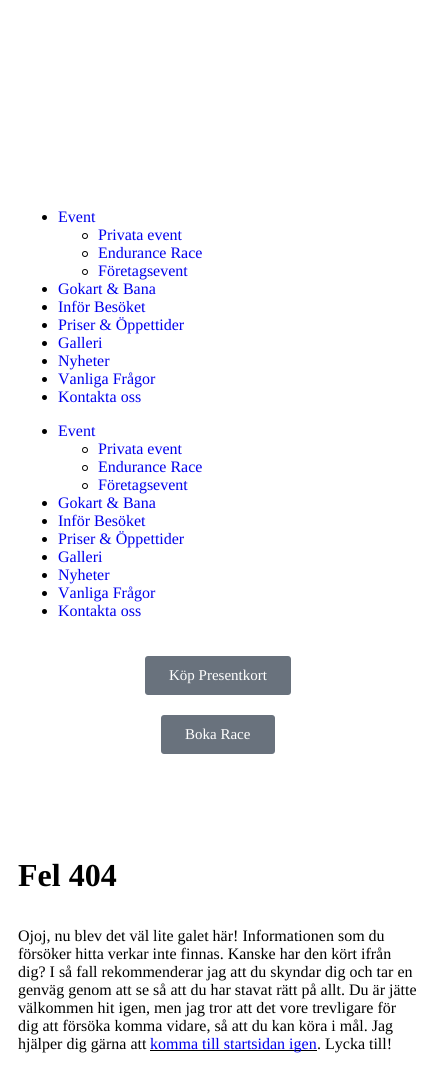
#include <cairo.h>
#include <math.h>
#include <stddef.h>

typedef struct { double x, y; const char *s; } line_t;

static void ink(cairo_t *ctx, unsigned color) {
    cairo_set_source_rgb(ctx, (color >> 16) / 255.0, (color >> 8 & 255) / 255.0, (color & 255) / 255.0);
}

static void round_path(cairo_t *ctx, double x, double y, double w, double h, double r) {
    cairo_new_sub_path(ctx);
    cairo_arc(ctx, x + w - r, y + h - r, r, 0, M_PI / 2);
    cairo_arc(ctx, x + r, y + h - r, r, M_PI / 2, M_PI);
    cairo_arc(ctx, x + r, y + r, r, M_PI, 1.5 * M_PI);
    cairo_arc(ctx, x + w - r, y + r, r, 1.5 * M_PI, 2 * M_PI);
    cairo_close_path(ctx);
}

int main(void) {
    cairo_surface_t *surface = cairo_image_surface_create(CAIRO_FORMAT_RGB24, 436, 1086);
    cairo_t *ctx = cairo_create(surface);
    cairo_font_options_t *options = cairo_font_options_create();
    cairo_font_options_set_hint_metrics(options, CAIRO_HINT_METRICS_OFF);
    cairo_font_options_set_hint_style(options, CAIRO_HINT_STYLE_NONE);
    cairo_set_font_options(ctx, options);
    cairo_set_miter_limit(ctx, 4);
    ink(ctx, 0xFFFFFF);
    cairo_paint(ctx);
    ink(ctx, 0x000000);
    cairo_arc(ctx, 44.5, 217.5, 2.5, 0, 2 * M_PI);
    cairo_fill(ctx);
    cairo_select_font_face(ctx, "Liberation Serif", CAIRO_FONT_SLANT_NORMAL, CAIRO_FONT_WEIGHT_NORMAL);
    cairo_set_font_size(ctx, 16);
    ink(ctx, 0x0000EE);
    cairo_move_to(ctx, 58, 222);
    cairo_show_text(ctx, "Event");
    cairo_new_path(ctx);
    cairo_arc(ctx, 85, 236, 2.5, 0, 2 * M_PI);
    ink(ctx, 0x000000);
    cairo_set_line_width(ctx, 1);
    cairo_stroke(ctx);
    ink(ctx, 0x0000EE);
    cairo_move_to(ctx, 98, 240);
    cairo_show_text(ctx, "Privata event");
    cairo_new_path(ctx);
    cairo_arc(ctx, 85, 254, 2.5, 0, 2 * M_PI);
    ink(ctx, 0x000000);
    cairo_stroke(ctx);
    ink(ctx, 0x0000EE);
    cairo_move_to(ctx, 98, 258);
    cairo_show_text(ctx, "Endurance Race");
    cairo_new_path(ctx);
    cairo_arc(ctx, 85, 272, 2.5, 0, 2 * M_PI);
    ink(ctx, 0x000000);
    cairo_stroke(ctx);
    ink(ctx, 0x0000EE);
    cairo_move_to(ctx, 98, 276);
    cairo_show_text(ctx, "Företagsevent");
    ink(ctx, 0x000000);
    cairo_new_path(ctx);
    cairo_arc(ctx, 44.5, 289.5, 2.5, 0, 2 * M_PI);
    cairo_fill(ctx);
    ink(ctx, 0x0000EE);
    cairo_move_to(ctx, 58, 294);
    cairo_show_text(ctx, "Gokart & Bana");
    ink(ctx, 0x000000);
    cairo_new_path(ctx);
    cairo_arc(ctx, 44.5, 307.5, 2.5, 0, 2 * M_PI);
    cairo_fill(ctx);
    ink(ctx, 0x0000EE);
    cairo_move_to(ctx, 58, 312);
    cairo_show_text(ctx, "Inför Besöket");
    ink(ctx, 0x000000);
    cairo_new_path(ctx);
    cairo_arc(ctx, 44.5, 325.5, 2.5, 0, 2 * M_PI);
    cairo_fill(ctx);
    ink(ctx, 0x0000EE);
    cairo_move_to(ctx, 58, 330);
    cairo_show_text(ctx, "Priser & Öppettider");
    ink(ctx, 0x000000);
    cairo_new_path(ctx);
    cairo_arc(ctx, 44.5, 343.5, 2.5, 0, 2 * M_PI);
    cairo_fill(ctx);
    ink(ctx, 0x0000EE);
    cairo_move_to(ctx, 58, 348);
    cairo_show_text(ctx, "Galleri");
    ink(ctx, 0x000000);
    cairo_new_path(ctx);
    cairo_arc(ctx, 44.5, 361.5, 2.5, 0, 2 * M_PI);
    cairo_fill(ctx);
    ink(ctx, 0x0000EE);
    cairo_move_to(ctx, 58, 366);
    cairo_show_text(ctx, "Nyheter");
    ink(ctx, 0x000000);
    cairo_new_path(ctx);
    cairo_arc(ctx, 44.5, 379.5, 2.5, 0, 2 * M_PI);
    cairo_fill(ctx);
    ink(ctx, 0x0000EE);
    cairo_move_to(ctx, 58, 384);
    cairo_show_text(ctx, "Vanliga Frågor");
    ink(ctx, 0x000000);
    cairo_new_path(ctx);
    cairo_arc(ctx, 44.5, 397.5, 2.5, 0, 2 * M_PI);
    cairo_fill(ctx);
    ink(ctx, 0x0000EE);
    cairo_move_to(ctx, 58, 402);
    cairo_show_text(ctx, "Kontakta oss");
    ink(ctx, 0x000000);
    cairo_new_path(ctx);
    cairo_arc(ctx, 44.5, 431.5, 2.5, 0, 2 * M_PI);
    cairo_fill(ctx);
    ink(ctx, 0x0000EE);
    cairo_move_to(ctx, 58, 436);
    cairo_show_text(ctx, "Event");
    cairo_new_path(ctx);
    cairo_arc(ctx, 85, 450, 2.5, 0, 2 * M_PI);
    ink(ctx, 0x000000);
    cairo_stroke(ctx);
    ink(ctx, 0x0000EE);
    cairo_move_to(ctx, 98, 454);
    cairo_show_text(ctx, "Privata event");
    cairo_new_path(ctx);
    cairo_arc(ctx, 85, 468, 2.5, 0, 2 * M_PI);
    ink(ctx, 0x000000);
    cairo_stroke(ctx);
    ink(ctx, 0x0000EE);
    cairo_move_to(ctx, 98, 472);
    cairo_show_text(ctx, "Endurance Race");
    cairo_new_path(ctx);
    cairo_arc(ctx, 85, 486, 2.5, 0, 2 * M_PI);
    ink(ctx, 0x000000);
    cairo_stroke(ctx);
    ink(ctx, 0x0000EE);
    cairo_move_to(ctx, 98, 490);
    cairo_show_text(ctx, "Företagsevent");
    ink(ctx, 0x000000);
    cairo_new_path(ctx);
    cairo_arc(ctx, 44.5, 503.5, 2.5, 0, 2 * M_PI);
    cairo_fill(ctx);
    ink(ctx, 0x0000EE);
    cairo_move_to(ctx, 58, 508);
    cairo_show_text(ctx, "Gokart & Bana");
    ink(ctx, 0x000000);
    cairo_new_path(ctx);
    cairo_arc(ctx, 44.5, 521.5, 2.5, 0, 2 * M_PI);
    cairo_fill(ctx);
    ink(ctx, 0x0000EE);
    cairo_move_to(ctx, 58, 526);
    cairo_show_text(ctx, "Inför Besöket");
    ink(ctx, 0x000000);
    cairo_new_path(ctx);
    cairo_arc(ctx, 44.5, 539.5, 2.5, 0, 2 * M_PI);
    cairo_fill(ctx);
    ink(ctx, 0x0000EE);
    cairo_move_to(ctx, 58, 544);
    cairo_show_text(ctx, "Priser & Öppettider");
    ink(ctx, 0x000000);
    cairo_new_path(ctx);
    cairo_arc(ctx, 44.5, 557.5, 2.5, 0, 2 * M_PI);
    cairo_fill(ctx);
    ink(ctx, 0x0000EE);
    cairo_move_to(ctx, 58, 562);
    cairo_show_text(ctx, "Galleri");
    ink(ctx, 0x000000);
    cairo_new_path(ctx);
    cairo_arc(ctx, 44.5, 575.5, 2.5, 0, 2 * M_PI);
    cairo_fill(ctx);
    ink(ctx, 0x0000EE);
    cairo_move_to(ctx, 58, 580);
    cairo_show_text(ctx, "Nyheter");
    ink(ctx, 0x000000);
    cairo_new_path(ctx);
    cairo_arc(ctx, 44.5, 593.5, 2.5, 0, 2 * M_PI);
    cairo_fill(ctx);
    ink(ctx, 0x0000EE);
    cairo_move_to(ctx, 58, 598);
    cairo_show_text(ctx, "Vanliga Frågor");
    ink(ctx, 0x000000);
    cairo_new_path(ctx);
    cairo_arc(ctx, 44.5, 611.5, 2.5, 0, 2 * M_PI);
    cairo_fill(ctx);
    ink(ctx, 0x0000EE);
    cairo_move_to(ctx, 58, 616);
    cairo_show_text(ctx, "Kontakta oss");
    ink(ctx, 0x69727D);
    round_path(ctx, 145, 656, 146, 39, 3);
    cairo_fill(ctx);
    cairo_set_font_size(ctx, 15);
    ink(ctx, 0xFFFFFF);
    cairo_move_to(ctx, 169, 680);
    cairo_show_text(ctx, "Köp Presentkort");
    ink(ctx, 0x69727D);
    round_path(ctx, 161, 715, 114, 39, 3);
    cairo_fill(ctx);
    ink(ctx, 0xFFFFFF);
    cairo_move_to(ctx, 185, 739);
    cairo_show_text(ctx, "Boka Race");
    cairo_select_font_face(ctx, "Liberation Serif", CAIRO_FONT_SLANT_NORMAL, CAIRO_FONT_WEIGHT_BOLD);
    cairo_set_font_size(ctx, 32);
    ink(ctx, 0x000000);
    cairo_move_to(ctx, 18, 886);
    cairo_show_text(ctx, "Fel 404");
    cairo_select_font_face(ctx, "Liberation Serif", CAIRO_FONT_SLANT_NORMAL, CAIRO_FONT_WEIGHT_NORMAL);
    cairo_set_font_size(ctx, 16);
    {
        static const line_t items[] = {
            {18, 941, "Ojoj, nu blev det väl lite galet här! Informationen som du"},
            {18, 959, "försöker hitta verkar inte finnas. Kanske har den kört ifrån"},
            {18, 977, "dig? I så fall rekommenderar jag att du skyndar dig och tar en"},
            {18, 995, "genväg genom att se så att du har stavat rätt på allt. Du är jätte"},
            {18, 1013, "välkommen hit igen, men jag tror att det vore trevligare för"},
            {18, 1031, "dig att försöka komma vidare, så att du kan köra i mål. Jag"},
            {18, 1049, "hjälper dig gärna att"},
        };
        for (size_t i = 0; i < sizeof items / sizeof *items; i++) {
            cairo_move_to(ctx, items[i].x, items[i].y);
            cairo_show_text(ctx, items[i].s);
        }
    }
    cairo_rectangle(ctx, 150, 1050, 167, 1);
    cairo_fill(ctx);
    ink(ctx, 0x0000EE);
    cairo_move_to(ctx, 150, 1049);
    cairo_show_text(ctx, "komma till startsidan igen");
    ink(ctx, 0x000000);
    cairo_move_to(ctx, 317, 1049);
    cairo_show_text(ctx, ". Lycka till!");
    cairo_surface_write_to_png(surface, "image.png");
    cairo_font_options_destroy(options);
    cairo_destroy(ctx);
    cairo_surface_destroy(surface);
    return 0;
}
